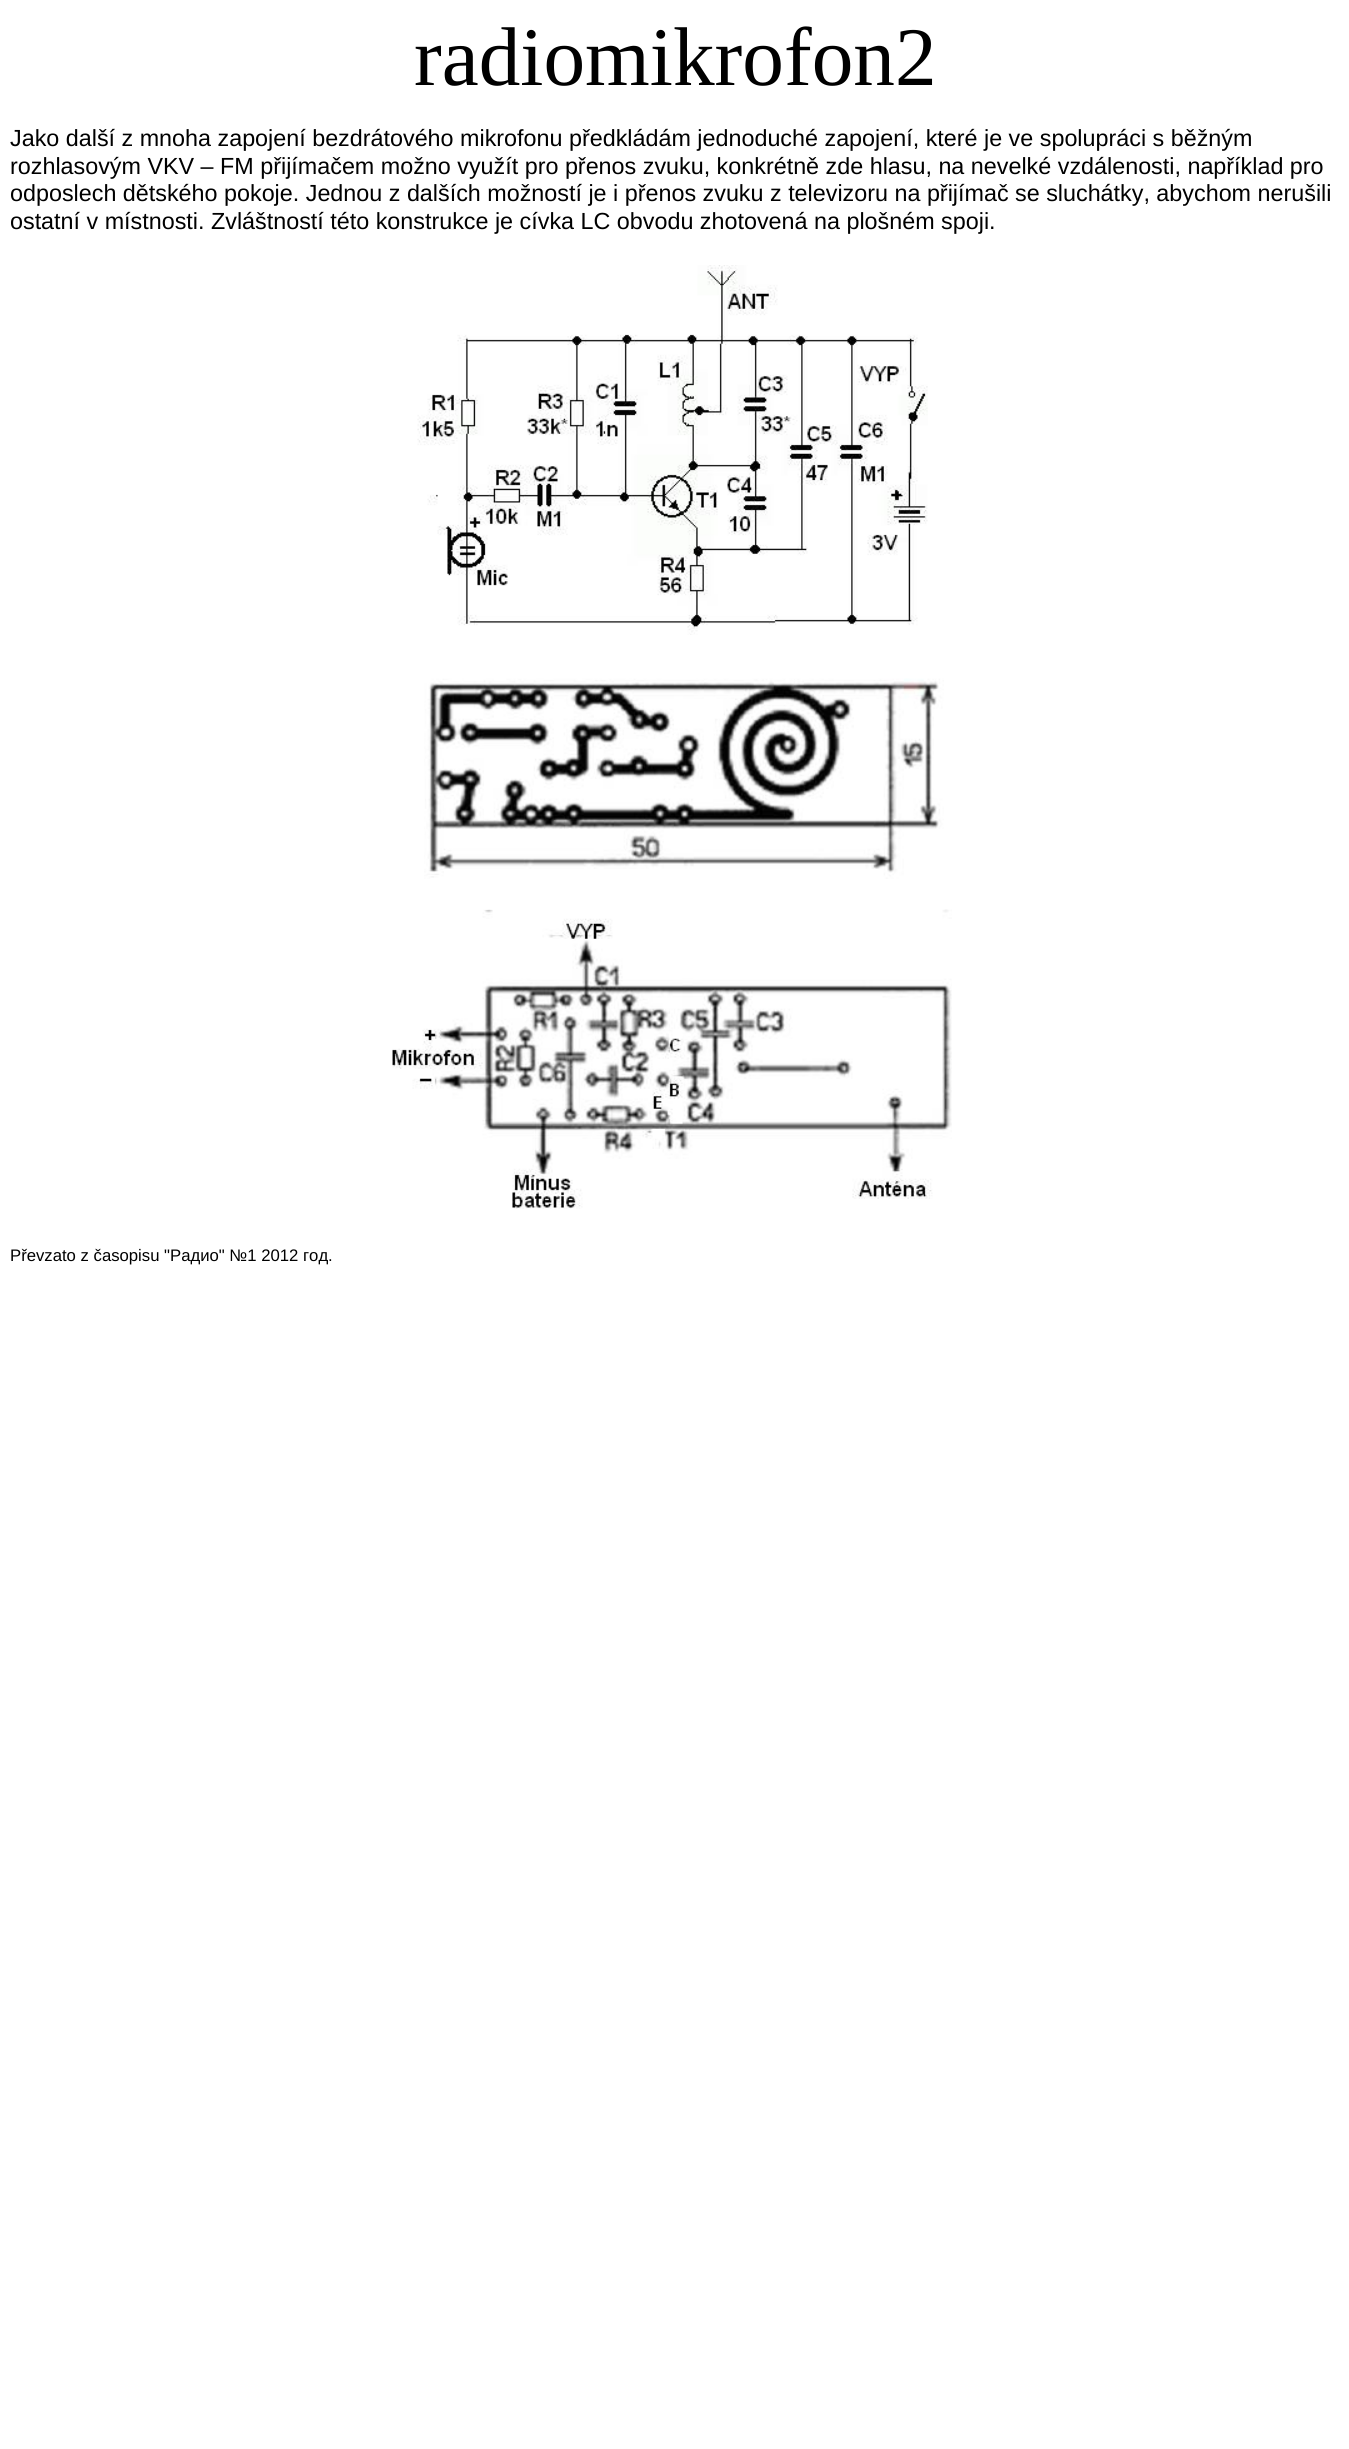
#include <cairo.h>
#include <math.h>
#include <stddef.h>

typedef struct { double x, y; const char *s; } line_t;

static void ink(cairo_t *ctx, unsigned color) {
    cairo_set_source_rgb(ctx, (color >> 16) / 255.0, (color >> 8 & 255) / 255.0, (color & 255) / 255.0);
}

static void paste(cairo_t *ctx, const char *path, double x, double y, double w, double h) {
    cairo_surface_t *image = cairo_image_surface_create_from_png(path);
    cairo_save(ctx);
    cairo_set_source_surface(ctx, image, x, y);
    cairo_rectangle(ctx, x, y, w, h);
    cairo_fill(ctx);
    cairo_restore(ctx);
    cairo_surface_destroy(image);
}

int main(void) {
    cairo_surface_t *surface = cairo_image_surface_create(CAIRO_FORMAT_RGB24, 1349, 2449);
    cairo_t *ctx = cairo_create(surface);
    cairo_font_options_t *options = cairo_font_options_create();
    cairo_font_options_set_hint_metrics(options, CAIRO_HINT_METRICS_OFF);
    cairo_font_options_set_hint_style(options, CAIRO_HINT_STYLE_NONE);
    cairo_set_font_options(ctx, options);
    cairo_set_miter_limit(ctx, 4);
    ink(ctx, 0xFFFFFF);
    cairo_paint(ctx);
    cairo_select_font_face(ctx, "Liberation Serif", CAIRO_FONT_SLANT_NORMAL, CAIRO_FONT_WEIGHT_NORMAL);
    cairo_set_font_size(ctx, 83.25);
    ink(ctx, 0x000000);
    cairo_move_to(ctx, 414, 85);
    cairo_show_text(ctx, "radiomikrofon2");
    cairo_select_font_face(ctx, "Liberation Sans", CAIRO_FONT_SLANT_NORMAL, CAIRO_FONT_WEIGHT_NORMAL);
    cairo_set_font_size(ctx, 23.33);
    {
        static const line_t items[] = {
            {10, 146, "Jako další z mnoha zapojení bezdrátového mikrofonu předkládám jednoduché zapojení, které je ve spolupráci s běžným"},
            {10, 174, "rozhlasovým VKV – FM přijímačem možno využít pro přenos zvuku, konkrétně zde hlasu, na nevelké vzdálenosti, například pro"},
            {10, 201, "odposlech dětského pokoje. Jednou z dalších možností je i přenos zvuku z televizoru na přijímač se sluchátky, abychom nerušili"},
            {10, 229, "ostatní v místnosti. Zvláštností této konstrukce je cívka LC obvodu zhotovená na plošném spoji."},
        };
        for (size_t i = 0; i < sizeof items / sizeof *items; i++) {
            cairo_move_to(ctx, items[i].x, items[i].y);
            cairo_show_text(ctx, items[i].s);
        }
    }
    paste(ctx, "media/1.png", 417, 265, 511, 370);
    paste(ctx, "media/2.png", 424, 678, 520, 201);
    paste(ctx, "media/3.png", 392, 909, 560, 300);
    cairo_set_font_size(ctx, 16.7);
    cairo_move_to(ctx, 10, 1261);
    cairo_show_text(ctx, "Převzato z časopisu \"Радио\" №1 2012 год.");
    cairo_surface_write_to_png(surface, "image.png");
    cairo_font_options_destroy(options);
    cairo_destroy(ctx);
    cairo_surface_destroy(surface);
    return 0;
}
